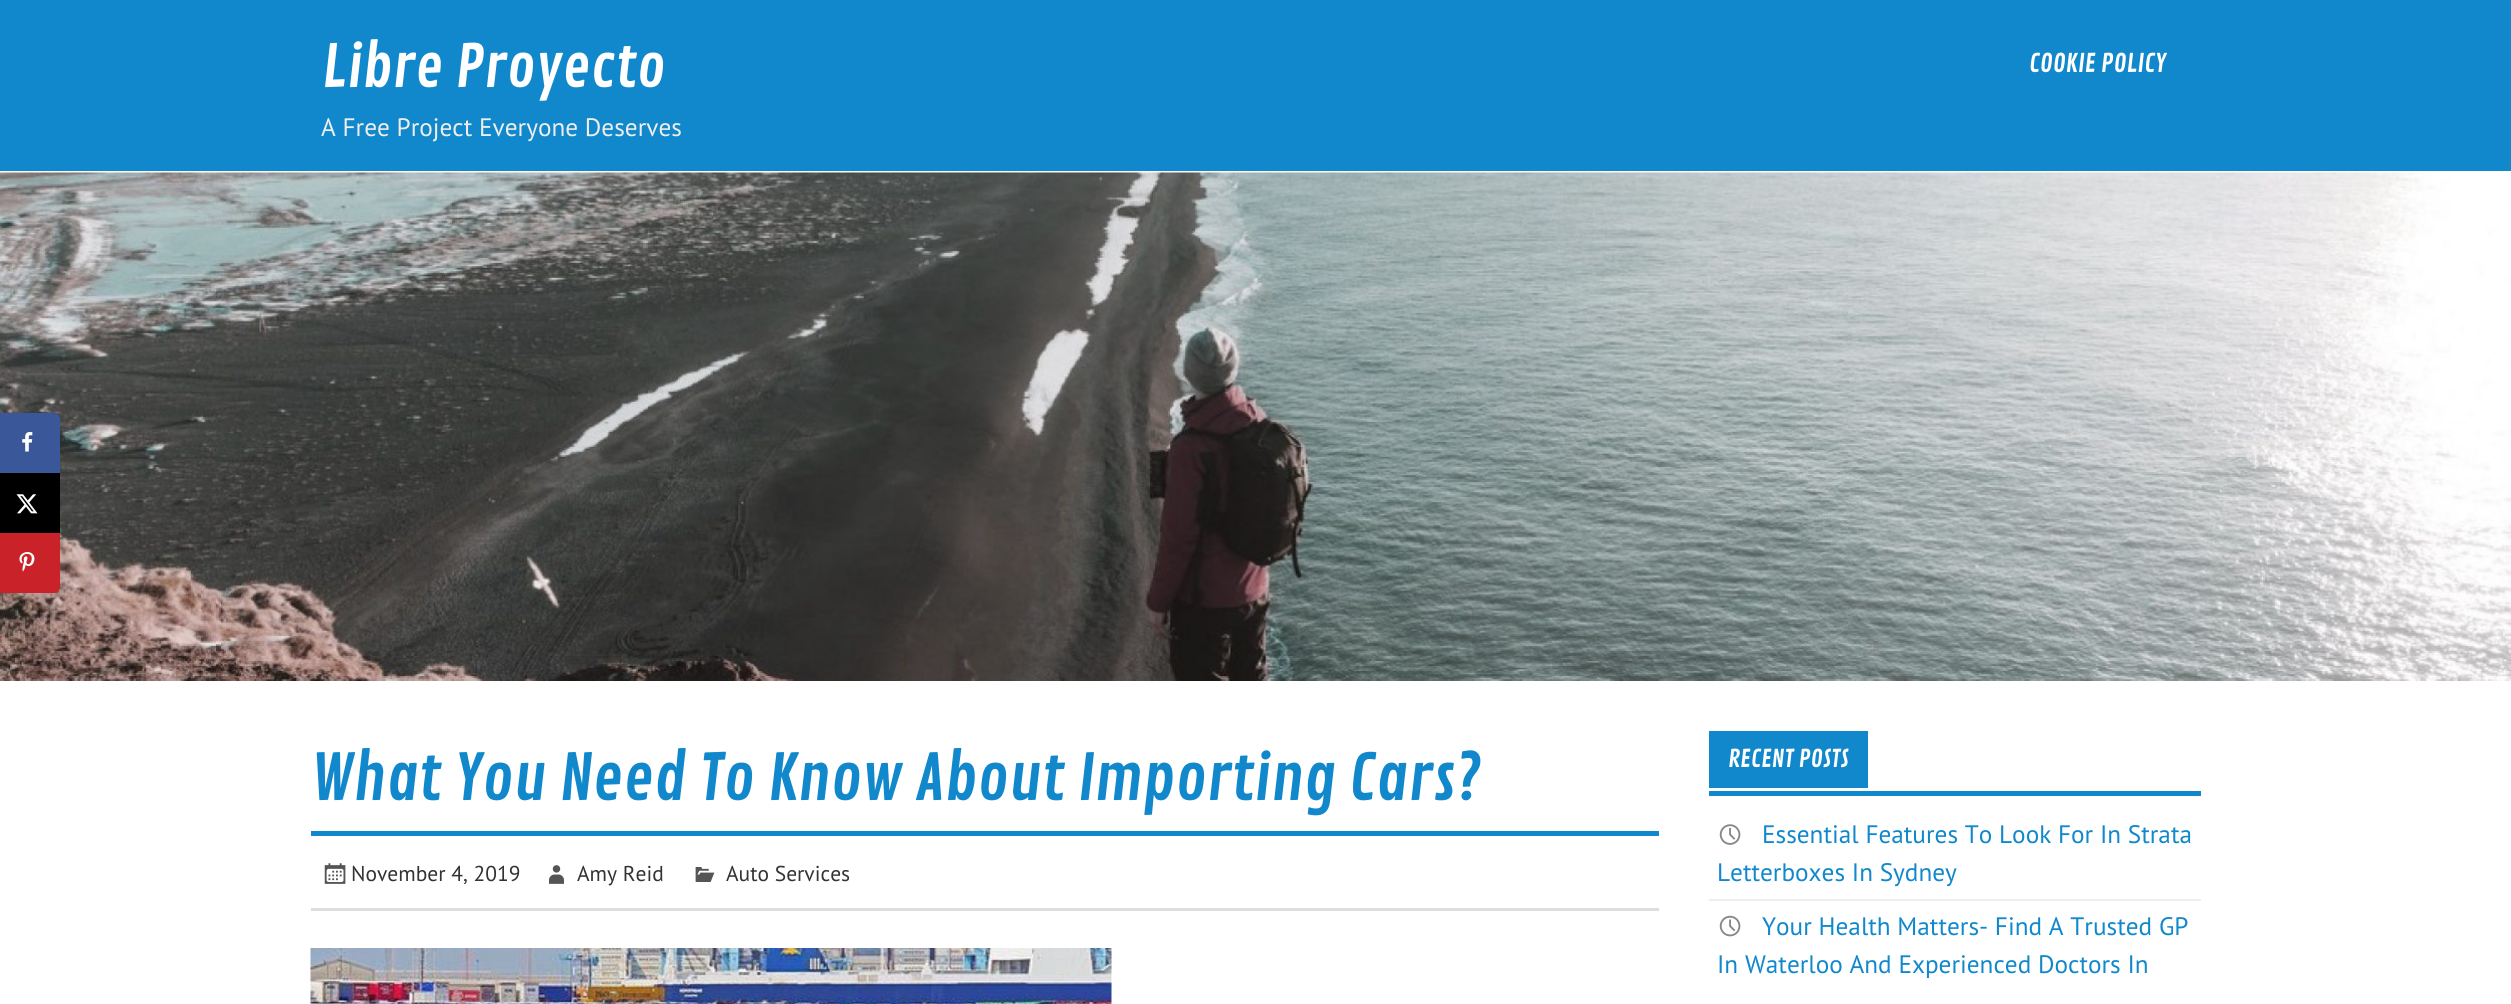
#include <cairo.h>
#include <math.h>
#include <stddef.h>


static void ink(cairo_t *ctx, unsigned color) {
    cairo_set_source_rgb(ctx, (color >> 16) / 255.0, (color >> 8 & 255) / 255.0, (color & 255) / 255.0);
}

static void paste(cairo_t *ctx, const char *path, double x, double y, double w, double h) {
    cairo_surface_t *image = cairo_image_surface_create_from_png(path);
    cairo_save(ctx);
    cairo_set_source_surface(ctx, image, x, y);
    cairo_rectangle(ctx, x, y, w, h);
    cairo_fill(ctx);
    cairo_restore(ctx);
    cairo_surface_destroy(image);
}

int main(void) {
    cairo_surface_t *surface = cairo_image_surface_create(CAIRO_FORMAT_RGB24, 2511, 1004);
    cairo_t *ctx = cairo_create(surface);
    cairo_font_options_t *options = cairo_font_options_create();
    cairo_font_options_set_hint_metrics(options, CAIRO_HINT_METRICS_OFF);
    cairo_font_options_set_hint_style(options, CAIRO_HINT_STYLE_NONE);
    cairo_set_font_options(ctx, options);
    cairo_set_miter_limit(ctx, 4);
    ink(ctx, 0xFFFFFF);
    cairo_paint(ctx);
    paste(ctx, "media/4.png", 0, 172, 2511, 509);
    ink(ctx, 0x3A579A);
    cairo_new_path(ctx);
    cairo_move_to(ctx, 1.5, 414.5);
    cairo_line_to(ctx, 54, 414.5);
    cairo_curve_to(ctx, 56.5, 414.5, 58.5, 416.5, 58.5, 419);
    cairo_line_to(ctx, 58.5, 471.5);
    cairo_line_to(ctx, 1.5, 471.5);
    cairo_close_path(ctx);
    cairo_fill_preserve(ctx);
    cairo_set_line_width(ctx, 3);
    cairo_stroke(ctx);
    paste(ctx, "media/1.png", 22, 432, 11, 20);
    ink(ctx, 0x000000);
    cairo_rectangle(ctx, 0, 473, 60, 60);
    cairo_fill(ctx);
    paste(ctx, "media/2.png", 16, 494, 22, 20);
    ink(ctx, 0xC92228);
    cairo_new_path(ctx);
    cairo_move_to(ctx, 1.5, 534.5);
    cairo_line_to(ctx, 58.5, 534.5);
    cairo_line_to(ctx, 58.5, 587);
    cairo_curve_to(ctx, 58.5, 589.5, 56.5, 591.5, 54, 591.5);
    cairo_line_to(ctx, 1.5, 591.5);
    cairo_close_path(ctx);
    cairo_fill_preserve(ctx);
    cairo_stroke(ctx);
    paste(ctx, "media/3.png", 19, 552, 16, 20);
    ink(ctx, 0x1188CC);
    cairo_rectangle(ctx, 0, 0, 2511, 171);
    cairo_fill(ctx);
    cairo_select_font_face(ctx, "Contrail One", CAIRO_FONT_SLANT_NORMAL, CAIRO_FONT_WEIGHT_NORMAL);
    cairo_set_font_size(ctx, 58);
    ink(ctx, 0xFFFFFF);
    cairo_move_to(ctx, 322, 87);
    cairo_show_text(ctx, "Libre Proyecto");
    cairo_select_font_face(ctx, "PT Sans", CAIRO_FONT_SLANT_NORMAL, CAIRO_FONT_WEIGHT_NORMAL);
    cairo_set_font_size(ctx, 25.25);
    ink(ctx, 0xEEEEEE);
    cairo_move_to(ctx, 321, 136);
    cairo_show_text(ctx, "A Free Project Everyone Deserves");
    cairo_select_font_face(ctx, "Contrail One", CAIRO_FONT_SLANT_NORMAL, CAIRO_FONT_WEIGHT_NORMAL);
    ink(ctx, 0xFFFFFF);
    cairo_move_to(ctx, 2029, 72);
    cairo_show_text(ctx, "COOKIE POLICY");
    ink(ctx, 0x1188CC);
    cairo_rectangle(ctx, 311, 831, 1348, 5);
    cairo_fill(ctx);
    cairo_set_font_size(ctx, 63);
    cairo_move_to(ctx, 311, 800);
    cairo_show_text(ctx, "What You Need To Know About Importing Cars?");
    ink(ctx, 0xDDDDDD);
    cairo_rectangle(ctx, 311, 908, 1348, 3);
    cairo_fill(ctx);
    paste(ctx, "media/5.png", 324, 863, 22, 21);
    cairo_select_font_face(ctx, "PT Sans", CAIRO_FONT_SLANT_NORMAL, CAIRO_FONT_WEIGHT_NORMAL);
    cairo_set_font_size(ctx, 21.5);
    ink(ctx, 0x333333);
    cairo_move_to(ctx, 351, 881);
    cairo_show_text(ctx, "November 4, 2019");
    paste(ctx, "media/6.png", 549, 865, 15, 19);
    cairo_move_to(ctx, 577, 881);
    cairo_show_text(ctx, "Amy Reid");
    paste(ctx, "media/7.png", 695, 867, 20, 15);
    cairo_move_to(ctx, 726, 881);
    cairo_show_text(ctx, "Auto Services");
    paste(ctx, "media/8.png", 310, 948, 802, 56);
    ink(ctx, 0x1188CC);
    cairo_rectangle(ctx, 1709, 791, 492, 5);
    cairo_fill(ctx);
    cairo_rectangle(ctx, 1709, 731, 159, 57);
    cairo_fill(ctx);
    cairo_select_font_face(ctx, "Contrail One", CAIRO_FONT_SLANT_NORMAL, CAIRO_FONT_WEIGHT_NORMAL);
    cairo_set_font_size(ctx, 24);
    ink(ctx, 0xFFFFFF);
    cairo_move_to(ctx, 1728, 767);
    cairo_show_text(ctx, "RECENT POSTS");
    ink(ctx, 0xEEEEEE);
    cairo_rectangle(ctx, 1709, 899, 492, 2);
    cairo_fill(ctx);
    paste(ctx, "media/9.png", 1719, 824, 22, 21);
    cairo_select_font_face(ctx, "PT Sans", CAIRO_FONT_SLANT_NORMAL, CAIRO_FONT_WEIGHT_NORMAL);
    cairo_set_font_size(ctx, 25.25);
    ink(ctx, 0x1188CC);
    cairo_move_to(ctx, 1762, 843);
    cairo_show_text(ctx, "Essential Features To Look For In Strata");
    cairo_move_to(ctx, 1717, 881);
    cairo_show_text(ctx, "Letterboxes In Sydney");
    paste(ctx, "media/10.png", 1719, 915, 22, 22);
    cairo_move_to(ctx, 1762, 935);
    cairo_show_text(ctx, "Your Health Matters- Find A Trusted GP");
    cairo_move_to(ctx, 1717, 973);
    cairo_show_text(ctx, "In Waterloo And Experienced Doctors In");
    cairo_surface_write_to_png(surface, "image.png");
    cairo_font_options_destroy(options);
    cairo_destroy(ctx);
    cairo_surface_destroy(surface);
    return 0;
}
